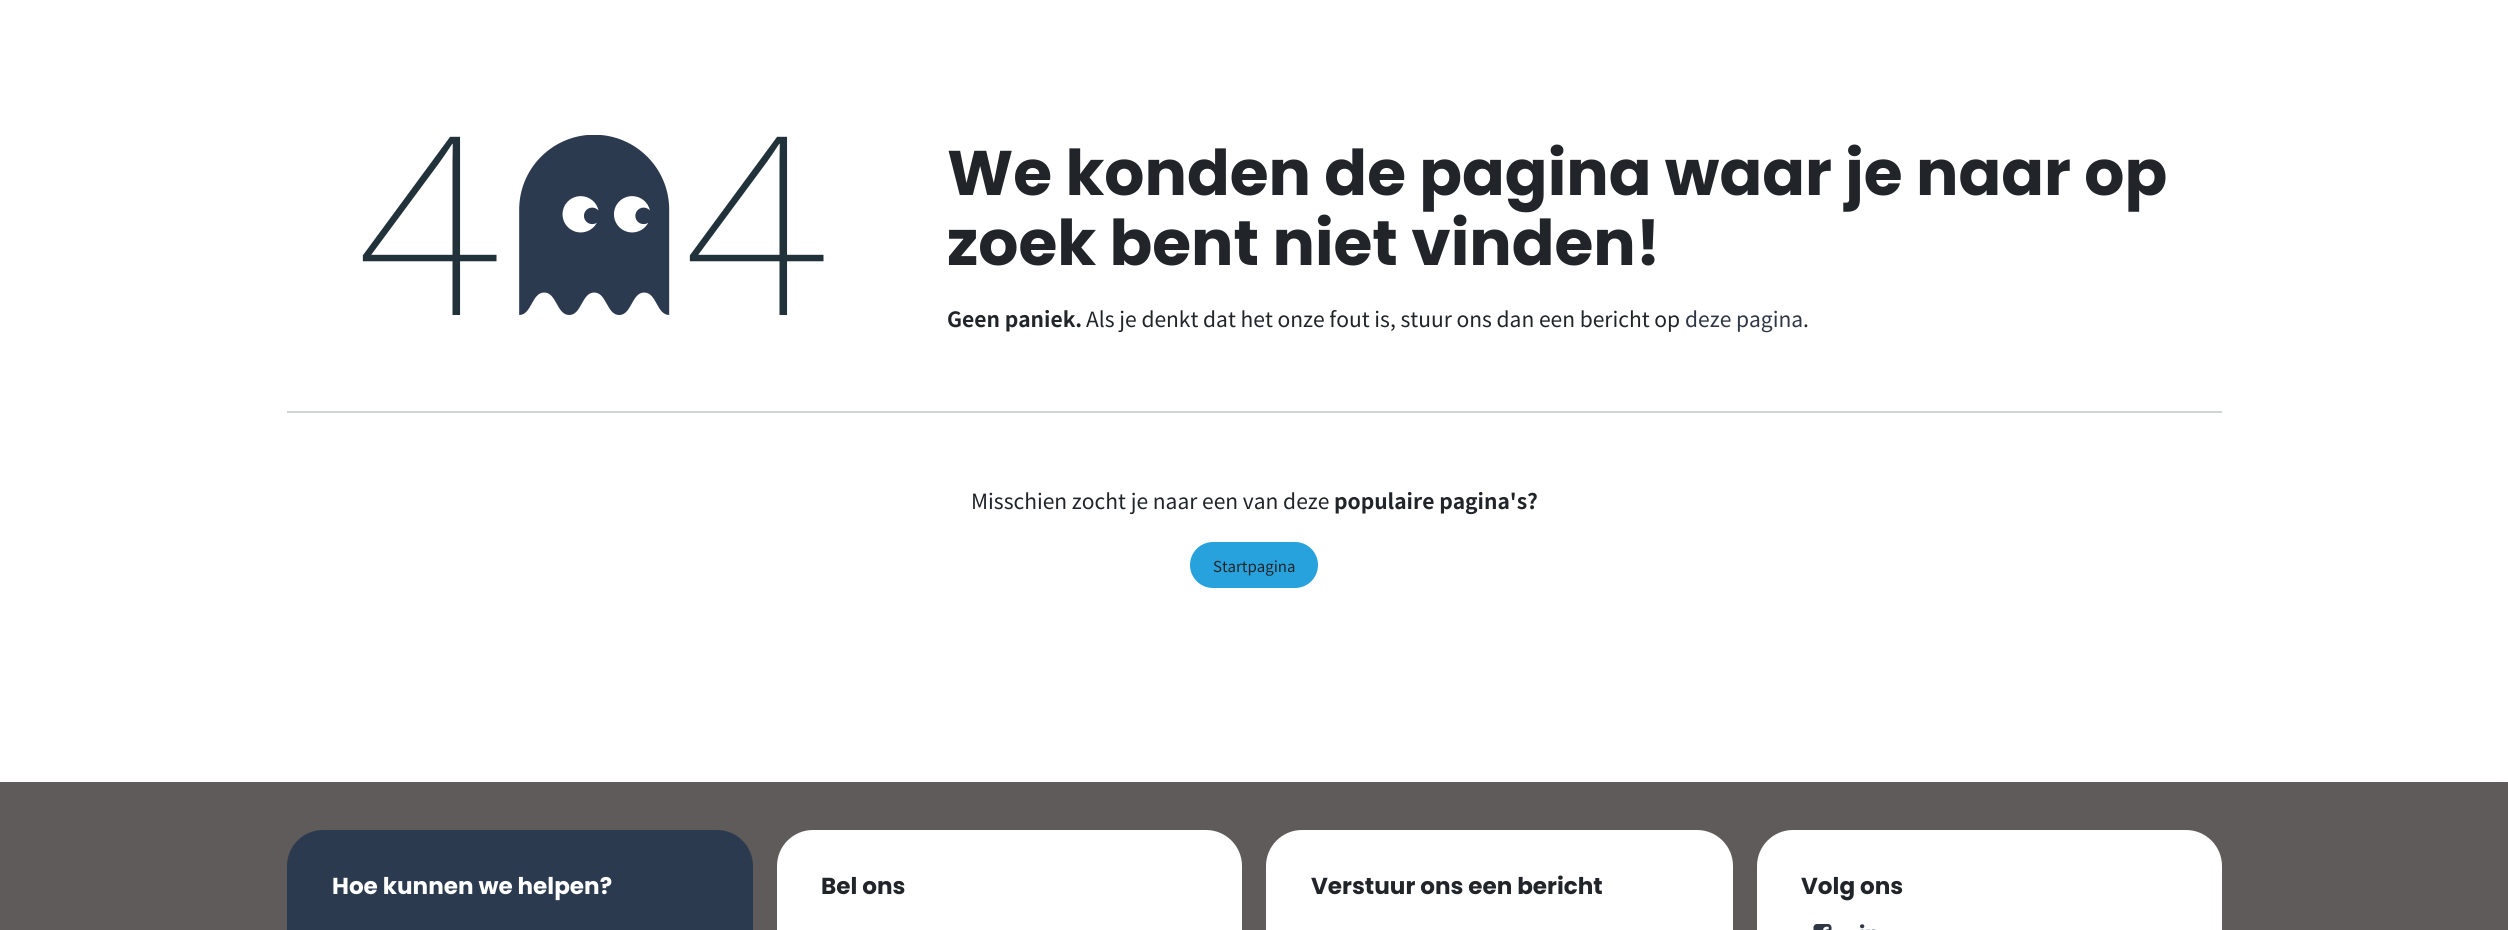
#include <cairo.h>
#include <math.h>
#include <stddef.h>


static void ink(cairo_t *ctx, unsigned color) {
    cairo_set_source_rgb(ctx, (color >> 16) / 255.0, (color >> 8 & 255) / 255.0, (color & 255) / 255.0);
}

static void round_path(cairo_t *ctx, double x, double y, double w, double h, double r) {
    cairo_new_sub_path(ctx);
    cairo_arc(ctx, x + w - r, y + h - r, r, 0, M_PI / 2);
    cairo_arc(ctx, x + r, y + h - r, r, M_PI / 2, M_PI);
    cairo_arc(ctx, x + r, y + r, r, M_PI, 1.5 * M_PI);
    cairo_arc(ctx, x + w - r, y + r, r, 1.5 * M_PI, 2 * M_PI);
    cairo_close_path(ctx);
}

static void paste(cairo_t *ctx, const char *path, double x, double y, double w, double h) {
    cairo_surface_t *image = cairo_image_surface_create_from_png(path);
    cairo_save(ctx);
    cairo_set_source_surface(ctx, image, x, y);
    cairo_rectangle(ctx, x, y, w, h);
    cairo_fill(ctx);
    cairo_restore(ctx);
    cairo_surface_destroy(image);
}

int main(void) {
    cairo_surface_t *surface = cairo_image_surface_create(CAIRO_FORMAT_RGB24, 2508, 930);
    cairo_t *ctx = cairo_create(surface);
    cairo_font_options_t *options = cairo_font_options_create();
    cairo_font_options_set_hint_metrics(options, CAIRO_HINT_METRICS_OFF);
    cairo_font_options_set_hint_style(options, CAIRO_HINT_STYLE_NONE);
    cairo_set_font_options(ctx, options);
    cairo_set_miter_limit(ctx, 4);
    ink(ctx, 0xFFFFFF);
    cairo_paint(ctx);
    paste(ctx, "media/1.png", 362, 135, 462, 180);
    cairo_select_font_face(ctx, "Poppins", CAIRO_FONT_SLANT_NORMAL, CAIRO_FONT_WEIGHT_BOLD);
    cairo_set_font_size(ctx, 63);
    ink(ctx, 0x212529);
    cairo_move_to(ctx, 947, 195);
    cairo_show_text(ctx, "We konden de pagina waar je naar op");
    cairo_move_to(ctx, 947, 265);
    cairo_show_text(ctx, "zoek bent niet vinden!");
    cairo_select_font_face(ctx, "Noto Sans TC", CAIRO_FONT_SLANT_NORMAL, CAIRO_FONT_WEIGHT_BOLD);
    cairo_set_font_size(ctx, 21);
    cairo_move_to(ctx, 947, 327);
    cairo_show_text(ctx, "Geen paniek.");
    cairo_select_font_face(ctx, "Noto Sans TC", CAIRO_FONT_SLANT_NORMAL, CAIRO_FONT_WEIGHT_NORMAL);
    cairo_move_to(ctx, 1086, 327);
    cairo_show_text(ctx, "Als je denkt dat het onze fout is, stuur ons dan een bericht op");
    ink(ctx, 0x2F3745);
    cairo_move_to(ctx, 1685, 327);
    cairo_show_text(ctx, "deze pagina");
    ink(ctx, 0x212529);
    cairo_move_to(ctx, 1803, 327);
    cairo_show_text(ctx, ".");
    ink(ctx, 0xCED4DA);
    cairo_rectangle(ctx, 287, 411, 1935, 2);
    cairo_fill(ctx);
    ink(ctx, 0x212529);
    cairo_move_to(ctx, 971, 509);
    cairo_show_text(ctx, "Misschien zocht je naar een van deze");
    cairo_select_font_face(ctx, "Noto Sans TC", CAIRO_FONT_SLANT_NORMAL, CAIRO_FONT_WEIGHT_BOLD);
    cairo_move_to(ctx, 1334, 509);
    cairo_show_text(ctx, "populaire pagina's?");
    ink(ctx, 0x28A2DC);
    round_path(ctx, 1189, 541, 130, 48, 24);
    cairo_fill_preserve(ctx);
    ink(ctx, 0xFFFFFF);
    cairo_stroke(ctx);
    cairo_select_font_face(ctx, "Noto Sans TC", CAIRO_FONT_SLANT_NORMAL, CAIRO_FONT_WEIGHT_NORMAL);
    cairo_set_font_size(ctx, 15);
    ink(ctx, 0x212529);
    cairo_move_to(ctx, 1213, 572);
    cairo_show_text(ctx, "Startpagina");
    ink(ctx, 0x5F5B5A);
    cairo_rectangle(ctx, 0, 782, 2508, 148);
    cairo_fill(ctx);
    ink(ctx, 0x2B3A4E);
    round_path(ctx, 287, 830, 466, 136, 36);
    cairo_fill(ctx);
    cairo_select_font_face(ctx, "Poppins", CAIRO_FONT_SLANT_NORMAL, CAIRO_FONT_WEIGHT_BOLD);
    cairo_set_font_size(ctx, 23.1);
    ink(ctx, 0xFFFFFF);
    cairo_move_to(ctx, 332, 894);
    cairo_show_text(ctx, "Hoe kunnen we helpen?");
    round_path(ctx, 777, 830, 465, 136, 36);
    cairo_fill(ctx);
    ink(ctx, 0x212529);
    cairo_move_to(ctx, 821, 894);
    cairo_show_text(ctx, "Bel ons");
    ink(ctx, 0xFFFFFF);
    round_path(ctx, 1266, 830, 467, 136, 36);
    cairo_fill(ctx);
    ink(ctx, 0x212529);
    cairo_move_to(ctx, 1311, 894);
    cairo_show_text(ctx, "Verstuur ons een bericht");
    ink(ctx, 0xFFFFFF);
    round_path(ctx, 1757, 830, 465, 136, 36);
    cairo_fill(ctx);
    ink(ctx, 0x212529);
    cairo_move_to(ctx, 1801, 894);
    cairo_show_text(ctx, "Volg ons");
    paste(ctx, "media/2.png", 1813, 924, 19, 6);
    paste(ctx, "media/3.png", 1860, 924, 16, 6);
    cairo_surface_write_to_png(surface, "image.png");
    cairo_font_options_destroy(options);
    cairo_destroy(ctx);
    cairo_surface_destroy(surface);
    return 0;
}
